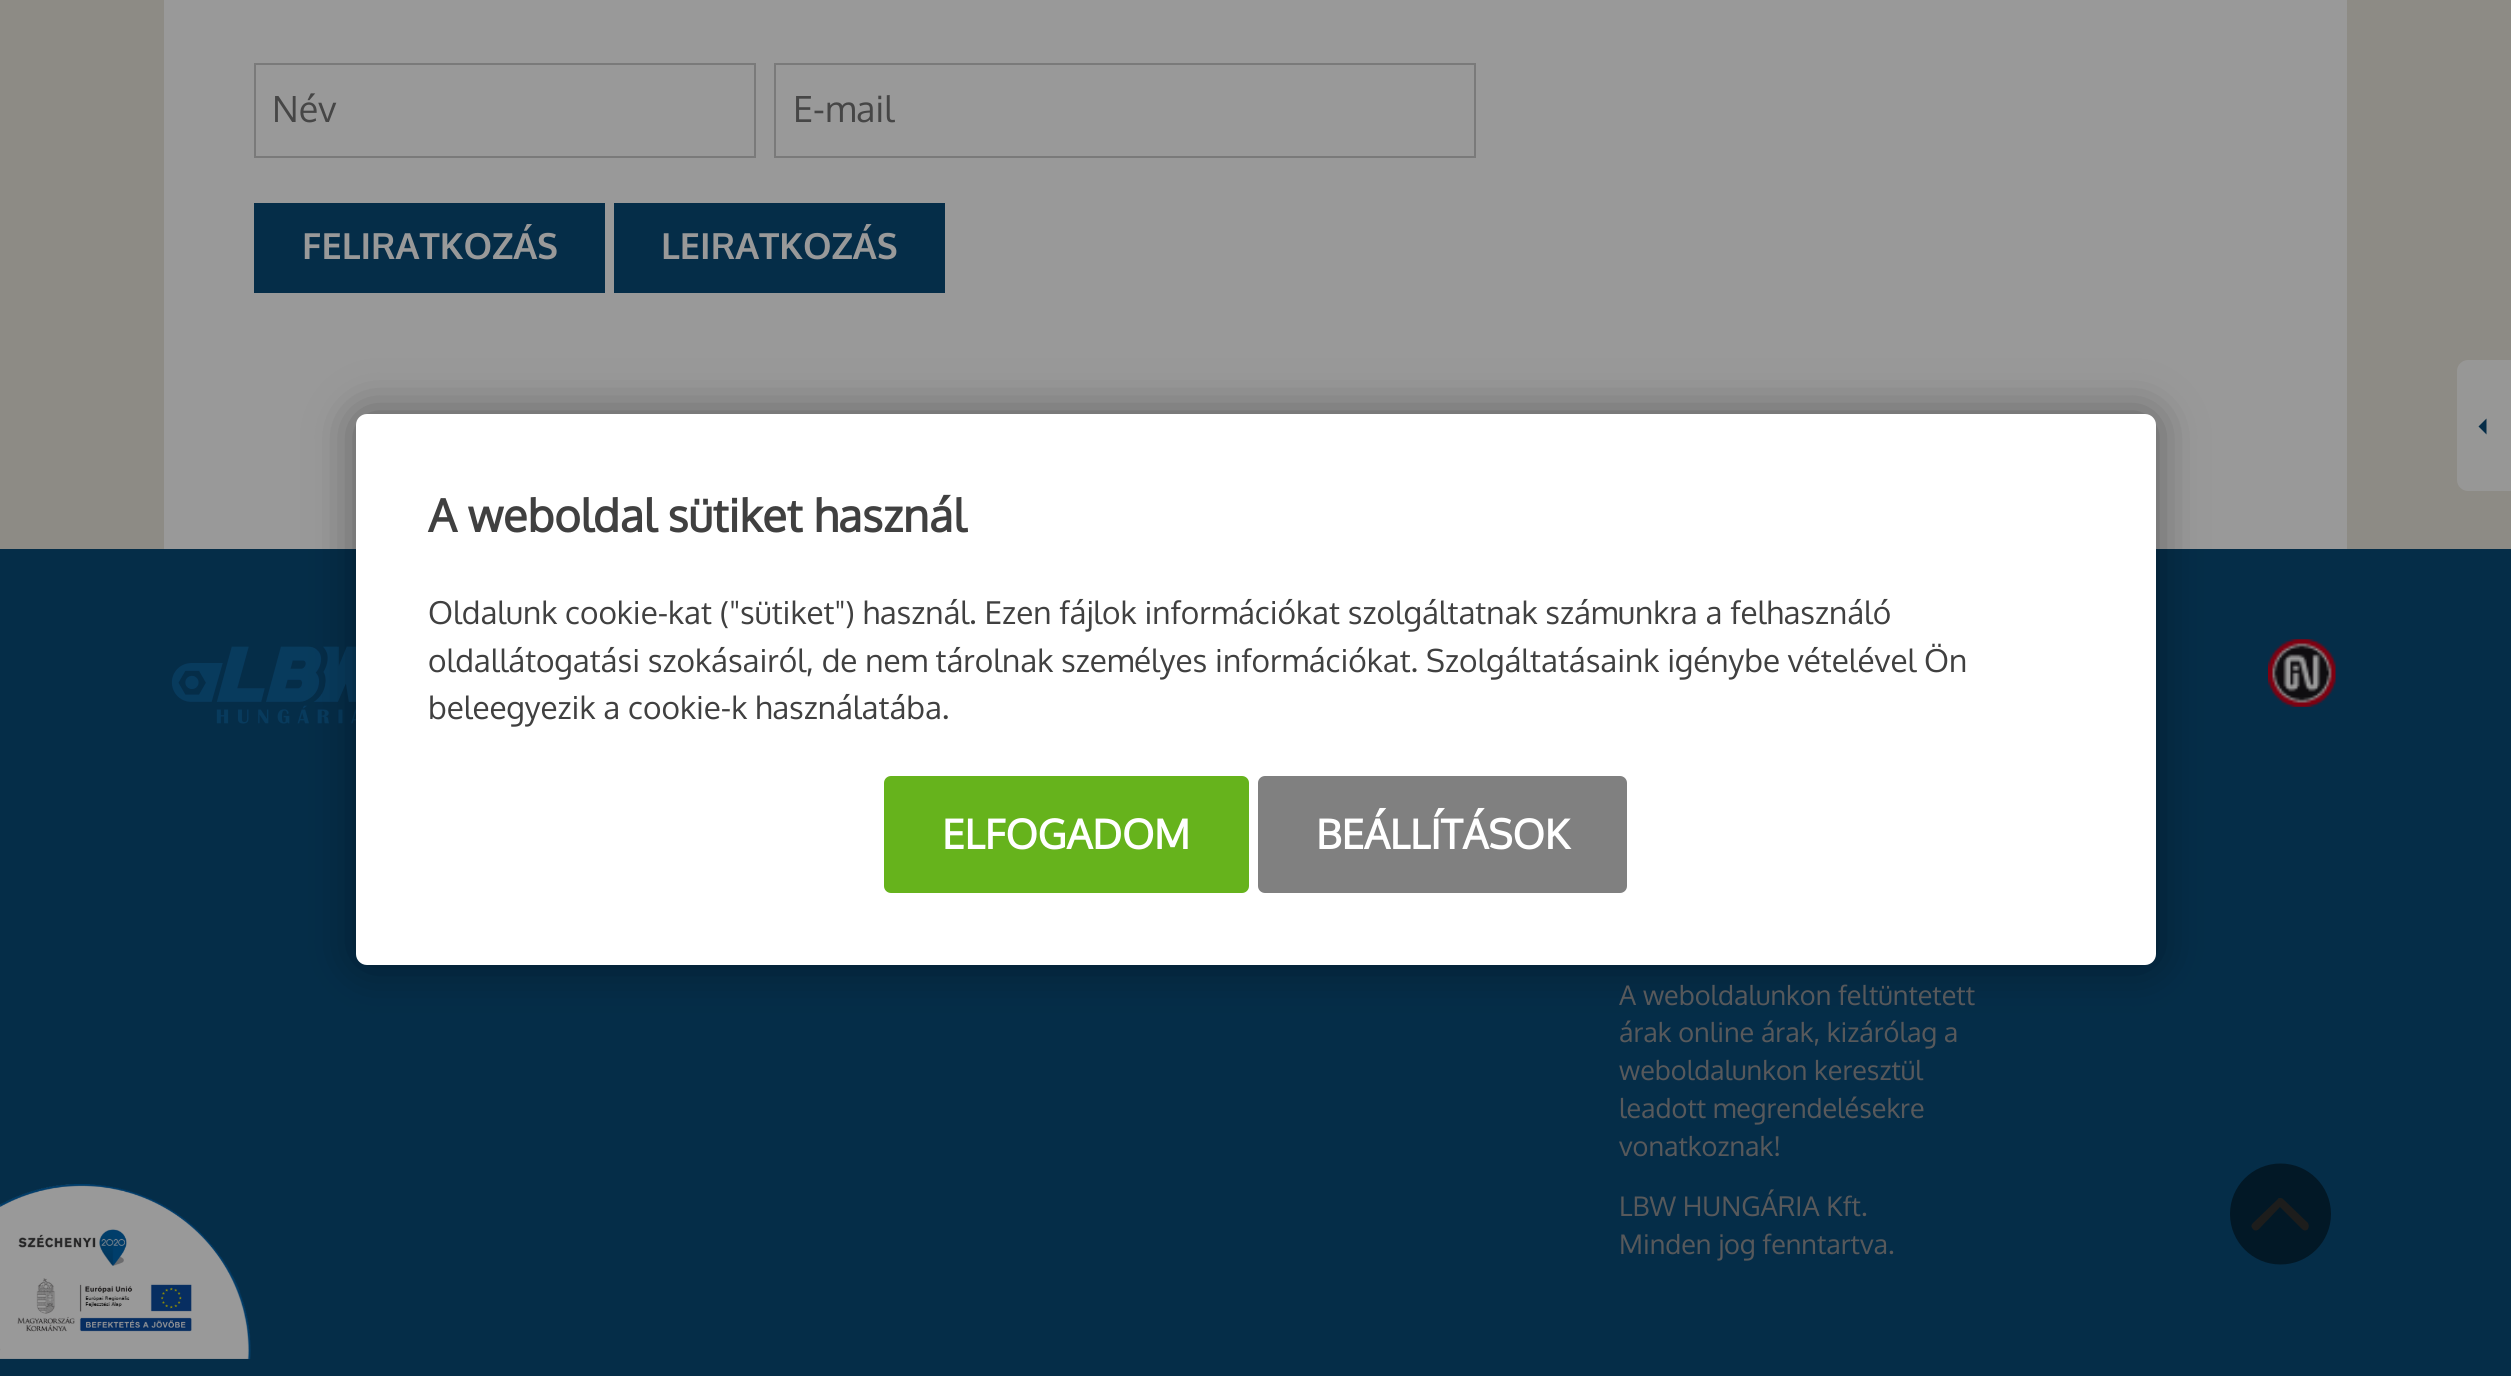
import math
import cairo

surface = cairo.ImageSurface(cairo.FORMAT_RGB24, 2511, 1376)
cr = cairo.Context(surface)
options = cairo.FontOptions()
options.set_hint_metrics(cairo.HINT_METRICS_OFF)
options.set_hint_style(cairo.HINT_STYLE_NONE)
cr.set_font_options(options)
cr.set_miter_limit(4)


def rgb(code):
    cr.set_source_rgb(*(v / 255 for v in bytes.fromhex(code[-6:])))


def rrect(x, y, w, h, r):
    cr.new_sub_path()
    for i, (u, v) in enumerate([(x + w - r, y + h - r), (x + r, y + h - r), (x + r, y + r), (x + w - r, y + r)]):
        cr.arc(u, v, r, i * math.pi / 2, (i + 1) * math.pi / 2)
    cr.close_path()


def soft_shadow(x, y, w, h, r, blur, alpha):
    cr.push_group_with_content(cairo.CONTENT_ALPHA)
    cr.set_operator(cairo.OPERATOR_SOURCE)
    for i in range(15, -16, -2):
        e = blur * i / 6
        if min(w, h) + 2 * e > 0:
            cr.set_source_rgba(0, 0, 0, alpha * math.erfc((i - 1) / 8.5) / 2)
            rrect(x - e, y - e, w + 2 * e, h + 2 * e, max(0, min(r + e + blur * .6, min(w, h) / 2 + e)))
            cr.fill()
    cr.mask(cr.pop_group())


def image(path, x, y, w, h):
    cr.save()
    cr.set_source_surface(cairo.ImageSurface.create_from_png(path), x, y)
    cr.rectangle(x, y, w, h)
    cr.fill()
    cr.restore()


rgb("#8d8b85")
cr.paint()
rgb("#999999")
cr.rectangle(164, 0, 2183, 549)
cr.fill()
cr.rectangle(255, 64, 500, 93)
rgb("#7a7a7a")
cr.stroke()
cr.rectangle(775, 64, 700, 93)
cr.stroke()
for x, y, w, h, color in [
    (254, 203, 351, 90, "#052d48"),
    (614, 203, 331, 90, "#052d48"),
    (0, 549, 2511, 827, "#052d48"),
]:
    rgb(color)
    cr.rectangle(x, y, w, h)
    cr.fill()
image("img/1.png", 0, 1184, 251, 175)
rgb("#979796")
cr.new_path()
cr.move_to(2468, 360)
cr.line_to(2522, 360)
cr.line_to(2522, 491)
cr.line_to(2468, 491)
cr.curve_to(2462, 491, 2457, 486, 2457, 480)
cr.line_to(2457, 371)
cr.curve_to(2457, 365, 2462, 360, 2468, 360)
cr.close_path()
cr.fill()
rgb("#052d48")
cr.new_path()
cr.move_to(2486.5, 418.5)
cr.line_to(2486.5, 434.5)
cr.line_to(2478.5, 426.5)
cr.close_path()
cr.fill()
image("img/2.png", 171, 646, 185, 78)
rgb("#000000")
soft_shadow(356, 414, 1800, 551, 11, 22.5, 0.4)
rgb("#ffffff")
rrect(356, 414, 1800, 551, 11)
cr.fill()
rgb("#66b31c")
rrect(885, 777, 363, 115, 6)
cr.fill_preserve()
cr.stroke()
rgb("#808080")
rrect(1259, 777, 367, 115, 6)
cr.fill_preserve()
cr.stroke()
image("img/3.png", 2268, 639, 68, 68)
rgb("#021826")
cr.arc(2280.5, 1214, 50.5, 0, 2 * math.pi)
cr.fill()
rgb("#1d1d1c")
cr.new_path()
cr.move_to(2280, 1198)
cr.curve_to(2279, 1198, 2278, 1198, 2278, 1199)
cr.line_to(2253, 1223)
cr.curve_to(2251, 1225, 2251, 1227, 2253, 1229)
cr.curve_to(2254, 1231, 2257, 1231, 2259, 1229)
cr.line_to(2280, 1207)
cr.line_to(2302, 1229)
cr.curve_to(2304, 1231, 2306, 1231, 2308, 1229)
cr.curve_to(2309, 1227, 2309, 1225, 2308, 1223)
cr.line_to(2283, 1199)
cr.curve_to(2282, 1198, 2281, 1198, 2280, 1198)
cr.close_path()
cr.fill()
cr.select_font_face("Oxygen")
cr.set_font_size(36)
rgb("#464646")
cr.move_to(272, 122)
cr.show_text("Név")
cr.move_to(793, 122)
cr.show_text("E-mail")
cr.select_font_face("Oxygen", cairo.FONT_SLANT_NORMAL, cairo.FONT_WEIGHT_BOLD)
rgb("#999999")
cr.move_to(302, 259)
cr.show_text("FELIRATKOZÁS")
cr.move_to(661, 259)
cr.show_text("LEIRATKOZÁS")
cr.select_font_face("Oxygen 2", cairo.FONT_SLANT_NORMAL, cairo.FONT_WEIGHT_BOLD)
cr.set_font_size(45)
rgb("#404040")
cr.move_to(428, 532)
cr.show_text("A weboldal sütiket használ")
cr.select_font_face("Oxygen")
cr.set_font_size(31.5)
for x, y, s in [
    (428, 624, "Oldalunk cookie-kat (\"sütiket\") használ. Ezen fájlok információkat szolgáltatnak számunkra a felhasználó"),
    (428, 672, "oldallátogatási szokásairól, de nem tárolnak személyes információkat. Szolgáltatásaink igénybe vételével Ön"),
    (428, 719, "beleegyezik a cookie-k használatába."),
]:
    cr.move_to(x, y)
    cr.show_text(s)
cr.select_font_face("Oxygen 2", cairo.FONT_SLANT_NORMAL, cairo.FONT_WEIGHT_BOLD)
cr.set_font_size(40.5)
rgb("#ffffff")
cr.move_to(942, 849)
cr.show_text("ELFOGADOM")
cr.move_to(1316, 849)
cr.show_text("BEÁLLÍTÁSOK")
cr.select_font_face("Oxygen")
cr.set_font_size(27)
rgb("#58595b")
for x, y, s in [
    (1619, 1005, "A weboldalunkon feltüntetett"),
    (1619, 1042, "árak online árak, kizárólag a"),
    (1619, 1080, "weboldalunkon keresztül"),
    (1619, 1118, "leadott megrendelésekre"),
    (1619, 1156, "vonatkoznak!"),
    (1619, 1216, "LBW HUNGÁRIA Kft."),
    (1619, 1254, "Minden jog fenntartva."),
]:
    cr.move_to(x, y)
    cr.show_text(s)
surface.write_to_png("page.png")
